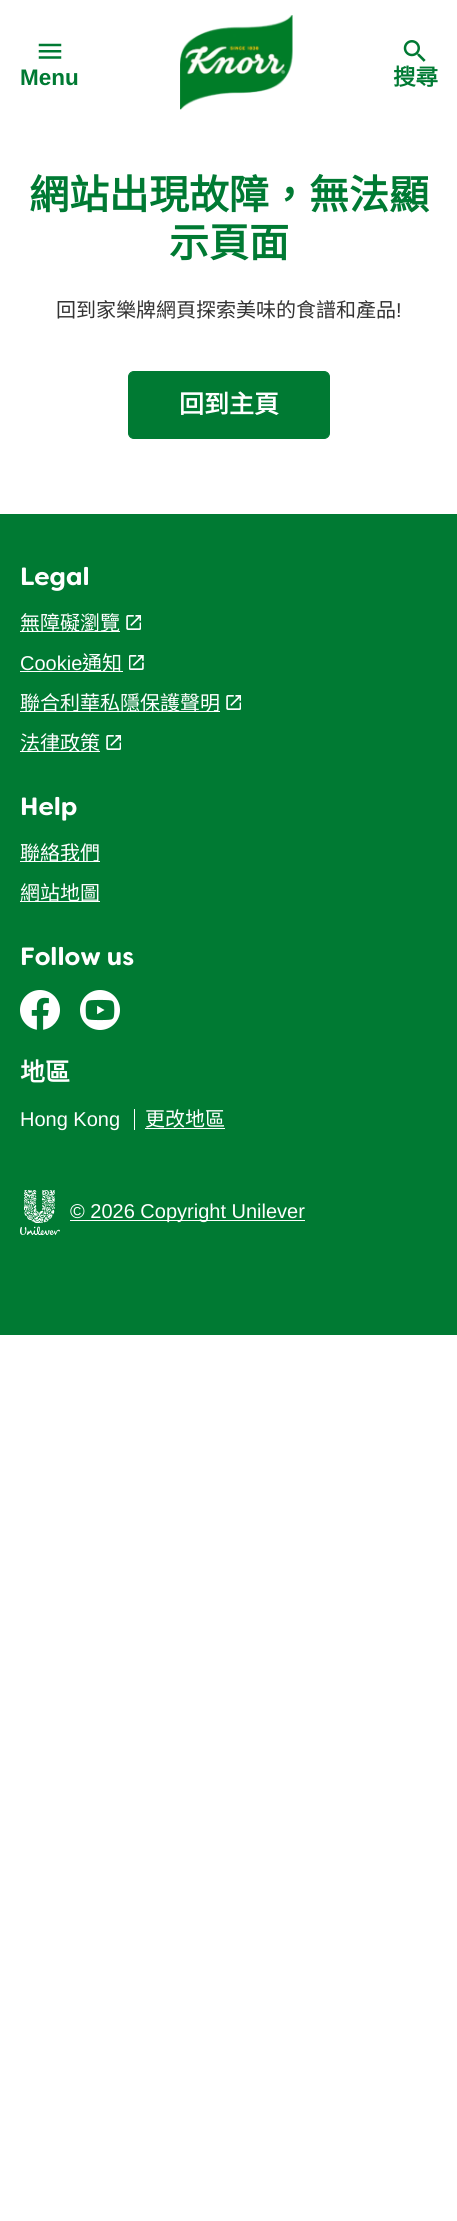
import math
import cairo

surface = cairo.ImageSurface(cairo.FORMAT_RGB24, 457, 2221)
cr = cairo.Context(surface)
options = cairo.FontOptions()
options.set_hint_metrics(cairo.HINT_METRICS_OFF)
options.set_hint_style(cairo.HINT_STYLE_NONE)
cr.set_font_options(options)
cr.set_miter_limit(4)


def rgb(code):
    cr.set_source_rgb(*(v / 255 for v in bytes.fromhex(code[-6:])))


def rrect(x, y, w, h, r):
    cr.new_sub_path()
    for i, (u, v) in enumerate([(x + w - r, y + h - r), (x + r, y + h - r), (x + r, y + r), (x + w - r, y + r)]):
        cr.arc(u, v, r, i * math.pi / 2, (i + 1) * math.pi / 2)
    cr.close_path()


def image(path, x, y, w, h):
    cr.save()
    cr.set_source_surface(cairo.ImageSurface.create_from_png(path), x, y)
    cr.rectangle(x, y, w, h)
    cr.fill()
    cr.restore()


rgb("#ffffff")
cr.paint()
image("img/1.png", 38, 43, 24, 16)
image("img/2.png", 180, 15, 113, 95)
image("img/3.png", 403, 40, 23, 22)
rgb("#007a33")
rrect(128.5, 371.5, 201, 67, 5.5)
cr.fill_preserve()
cr.set_line_width(1)
cr.stroke()
cr.rectangle(0, 514, 457, 821)
cr.fill()
rgb("#ffffff")
cr.rectangle(20, 631, 100, 1)
cr.fill()
image("img/4.png", 126, 615, 15, 15)
cr.rectangle(20, 671, 103, 1)
cr.fill()
image("img/5.png", 129, 655, 15, 15)
cr.rectangle(20, 711, 200, 1)
cr.fill()
image("img/4.png", 226, 695, 15, 15)
cr.rectangle(20, 751, 80, 1)
cr.fill()
image("img/4.png", 106, 735, 15, 15)
cr.rectangle(20, 861, 80, 1)
cr.fill()
cr.rectangle(20, 901, 80, 1)
cr.fill()
image("img/6.png", 20, 990, 40, 40)
image("img/7.png", 80, 990, 40, 40)
cr.rectangle(134, 1109, 1, 21)
cr.fill()
cr.rectangle(145, 1128, 80, 1)
cr.fill()
image("img/8.png", 20, 1190, 40, 45)
cr.rectangle(70, 1220, 235, 1)
cr.fill()
cr.select_font_face("Liberation Sans", cairo.FONT_SLANT_NORMAL, cairo.FONT_WEIGHT_BOLD)
cr.set_font_size(22.5)
rgb("#007a33")
cr.move_to(20, 85)
cr.show_text("Menu")
cr.select_font_face("Noto Sans CJK HK", cairo.FONT_SLANT_NORMAL, cairo.FONT_WEIGHT_BOLD)
cr.move_to(393, 85)
cr.show_text("搜尋")
cr.set_font_size(40)
cr.move_to(29, 209)
cr.show_text("網站出現故障，無法顯")
cr.move_to(169, 257)
cr.show_text("示頁面")
cr.select_font_face("Noto Sans CJK HK")
cr.set_font_size(20)
rgb("#333333")
cr.move_to(56, 317)
cr.show_text("回到家樂牌網頁探索美味的食譜和產品")
cr.select_font_face("Liberation Sans")
cr.move_to(396, 317)
cr.show_text("!")
cr.select_font_face("Noto Sans CJK HK", cairo.FONT_SLANT_NORMAL, cairo.FONT_WEIGHT_BOLD)
cr.set_font_size(25)
rgb("#ffffff")
cr.move_to(179, 413)
cr.show_text("回到主頁")
cr.select_font_face("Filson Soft", cairo.FONT_SLANT_NORMAL, cairo.FONT_WEIGHT_BOLD)
cr.move_to(20, 585)
cr.show_text("Legal")
cr.select_font_face("Noto Sans CJK HK")
cr.set_font_size(20)
cr.move_to(20, 630)
cr.show_text("無障礙瀏覽")
cr.select_font_face("Liberation Sans")
cr.move_to(20, 670)
cr.show_text("Cookie")
cr.select_font_face("Noto Sans CJK HK")
for x, y, s in [
    (82, 670, "通知"),
    (20, 710, "聯合利華私隱保護聲明"),
    (20, 750, "法律政策"),
]:
    cr.move_to(x, y)
    cr.show_text(s)
cr.select_font_face("Filson Soft", cairo.FONT_SLANT_NORMAL, cairo.FONT_WEIGHT_BOLD)
cr.set_font_size(25)
cr.move_to(20, 815)
cr.show_text("Help")
cr.select_font_face("Noto Sans CJK HK")
cr.set_font_size(20)
cr.move_to(20, 860)
cr.show_text("聯絡我們")
cr.move_to(20, 900)
cr.show_text("網站地圖")
cr.select_font_face("Filson Soft", cairo.FONT_SLANT_NORMAL, cairo.FONT_WEIGHT_BOLD)
cr.set_font_size(25)
cr.move_to(20, 965)
cr.show_text("Follow us")
cr.select_font_face("Noto Sans CJK HK", cairo.FONT_SLANT_NORMAL, cairo.FONT_WEIGHT_BOLD)
cr.move_to(20, 1081)
cr.show_text("地區")
cr.select_font_face("Liberation Sans")
cr.set_font_size(20)
cr.move_to(20, 1126)
cr.show_text("Hong Kong")
cr.select_font_face("Noto Sans CJK HK")
cr.move_to(145, 1126)
cr.show_text("更改地區")
cr.select_font_face("Liberation Sans")
cr.move_to(70, 1218)
cr.show_text("© 2026 Copyright Unilever")
surface.write_to_png("page.png")
